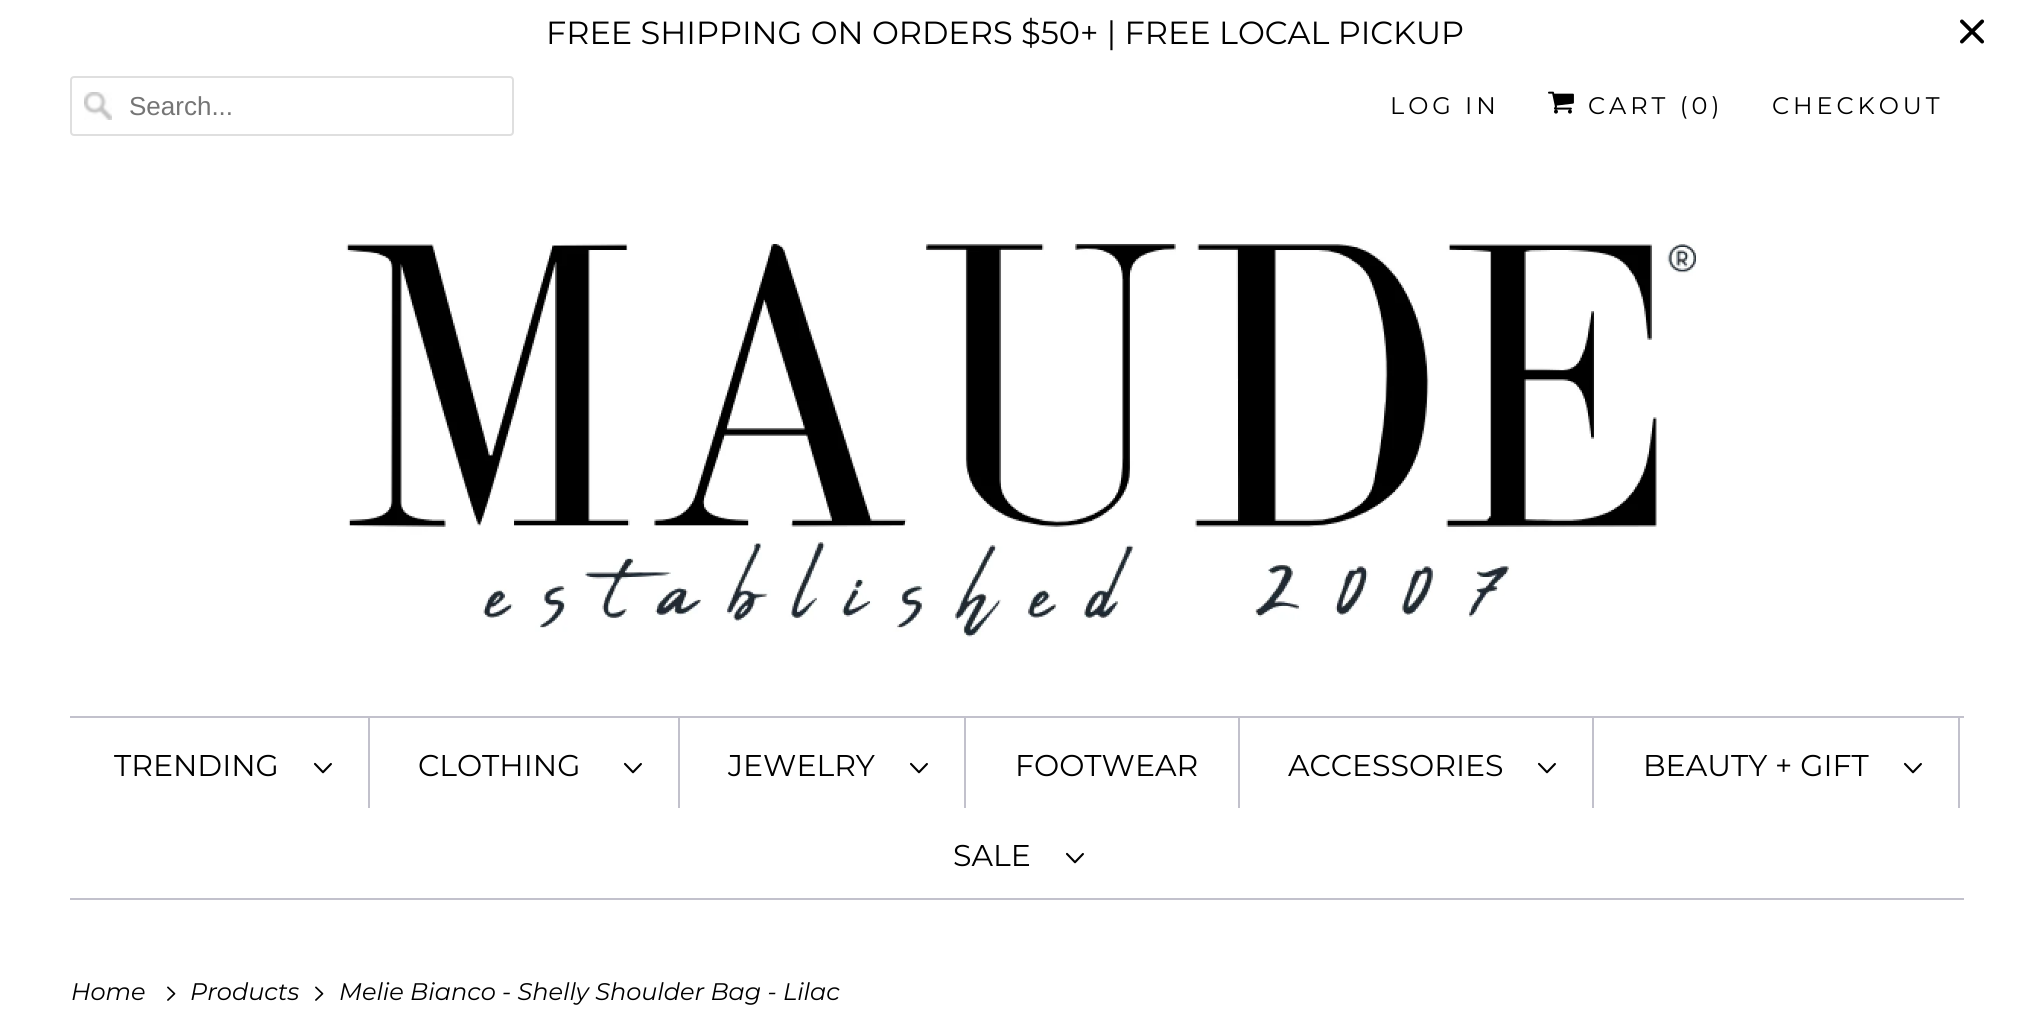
import math
import cairo

surface = cairo.ImageSurface(cairo.FORMAT_RGB24, 2034, 1017)
cr = cairo.Context(surface)
options = cairo.FontOptions()
options.set_hint_metrics(cairo.HINT_METRICS_OFF)
options.set_hint_style(cairo.HINT_STYLE_NONE)
cr.set_font_options(options)
cr.set_miter_limit(4)


def rgb(code):
    cr.set_source_rgb(*(v / 255 for v in bytes.fromhex(code[-6:])))


def tracked(x, y, s, letter, word):
    cr.move_to(x, y)
    for ch in s:
        cr.show_text(ch)
        cr.rel_move_to(letter + word * (ch == ' '), 0)


def rrect(x, y, w, h, r):
    cr.new_sub_path()
    for i, (u, v) in enumerate([(x + w - r, y + h - r), (x + r, y + h - r), (x + r, y + r), (x + w - r, y + r)]):
        cr.arc(u, v, r, i * math.pi / 2, (i + 1) * math.pi / 2)
    cr.close_path()


def image(path, x, y, w, h):
    cr.save()
    cr.set_source_surface(cairo.ImageSurface.create_from_png(path), x, y)
    cr.rectangle(x, y, w, h)
    cr.fill()
    cr.restore()


rgb("#ffffff")
cr.paint()
image("img/1.png", 1960, 19, 25, 25)
image("img/2.png", 84, 92, 28, 28)
rrect(71, 77, 442, 58, 3)
rgb("#dfdfdf")
cr.stroke()
image("img/3.png", 1548, 91, 26, 23)
image("img/4.png", 346, 243, 1350, 395)
for x, y, w, h, color in [
    (70, 716, 1894, 2, "#c2c1cc"),
    (70, 898, 1894, 2, "#c2c1cc"),
    (368, 718, 2, 90, "#c2c1cc"),
]:
    rgb(color)
    cr.rectangle(x, y, w, h)
    cr.fill()
image("img/5.png", 314, 762, 18, 12)
cr.rectangle(678, 718, 2, 90)
cr.fill()
image("img/5.png", 624, 762, 18, 12)
cr.rectangle(964, 718, 2, 90)
cr.fill()
image("img/5.png", 910, 762, 18, 12)
cr.rectangle(1238, 718, 2, 90)
cr.fill()
cr.rectangle(1592, 718, 2, 90)
cr.fill()
image("img/5.png", 1538, 762, 18, 12)
cr.rectangle(1958, 718, 2, 90)
cr.fill()
image("img/5.png", 1904, 762, 18, 12)
image("img/5.png", 1066, 852, 18, 12)
image("img/6.png", 167, 986, 9, 15)
image("img/6.png", 315, 986, 9, 15)
cr.select_font_face("Montserrat")
cr.set_font_size(32)
rgb("#000000")
cr.move_to(546, 44)
cr.show_text("FREE SHIPPING ON ORDERS $50+ | FREE LOCAL PICKUP")
cr.select_font_face("Liberation Sans")
cr.set_font_size(26)
rgb("#757575")
cr.move_to(129, 115)
cr.show_text("Search...")
cr.select_font_face("Montserrat")
cr.set_font_size(24)
rgb("#000000")
for x, y, s in [
    (1390, 114, "LOG IN"),
    (1588, 114, "CART (0)"),
    (1772, 114, "CHECKOUT"),
]:
    tracked(x, y, s, 4, 0)
cr.set_font_size(30)
for x, y, s in [
    (114, 776, "TRENDING"),
    (418, 776, "CLOTHING"),
    (728, 776, "JEWELRY"),
    (1015, 776, "FOOTWEAR"),
    (1288, 776, "ACCESSORIES"),
    (1643, 776, "BEAUTY + GIFT"),
    (953, 866, "SALE"),
]:
    cr.move_to(x, y)
    cr.show_text(s)
cr.select_font_face("Montserrat", cairo.FONT_SLANT_ITALIC)
cr.set_font_size(24)
for x, y, s in [
    (71, 1000, "Home"),
    (190, 1000, "Products"),
    (339, 1000, "Melie Bianco - Shelly Shoulder Bag - Lilac"),
]:
    cr.move_to(x, y)
    cr.show_text(s)
surface.write_to_png("page.png")
